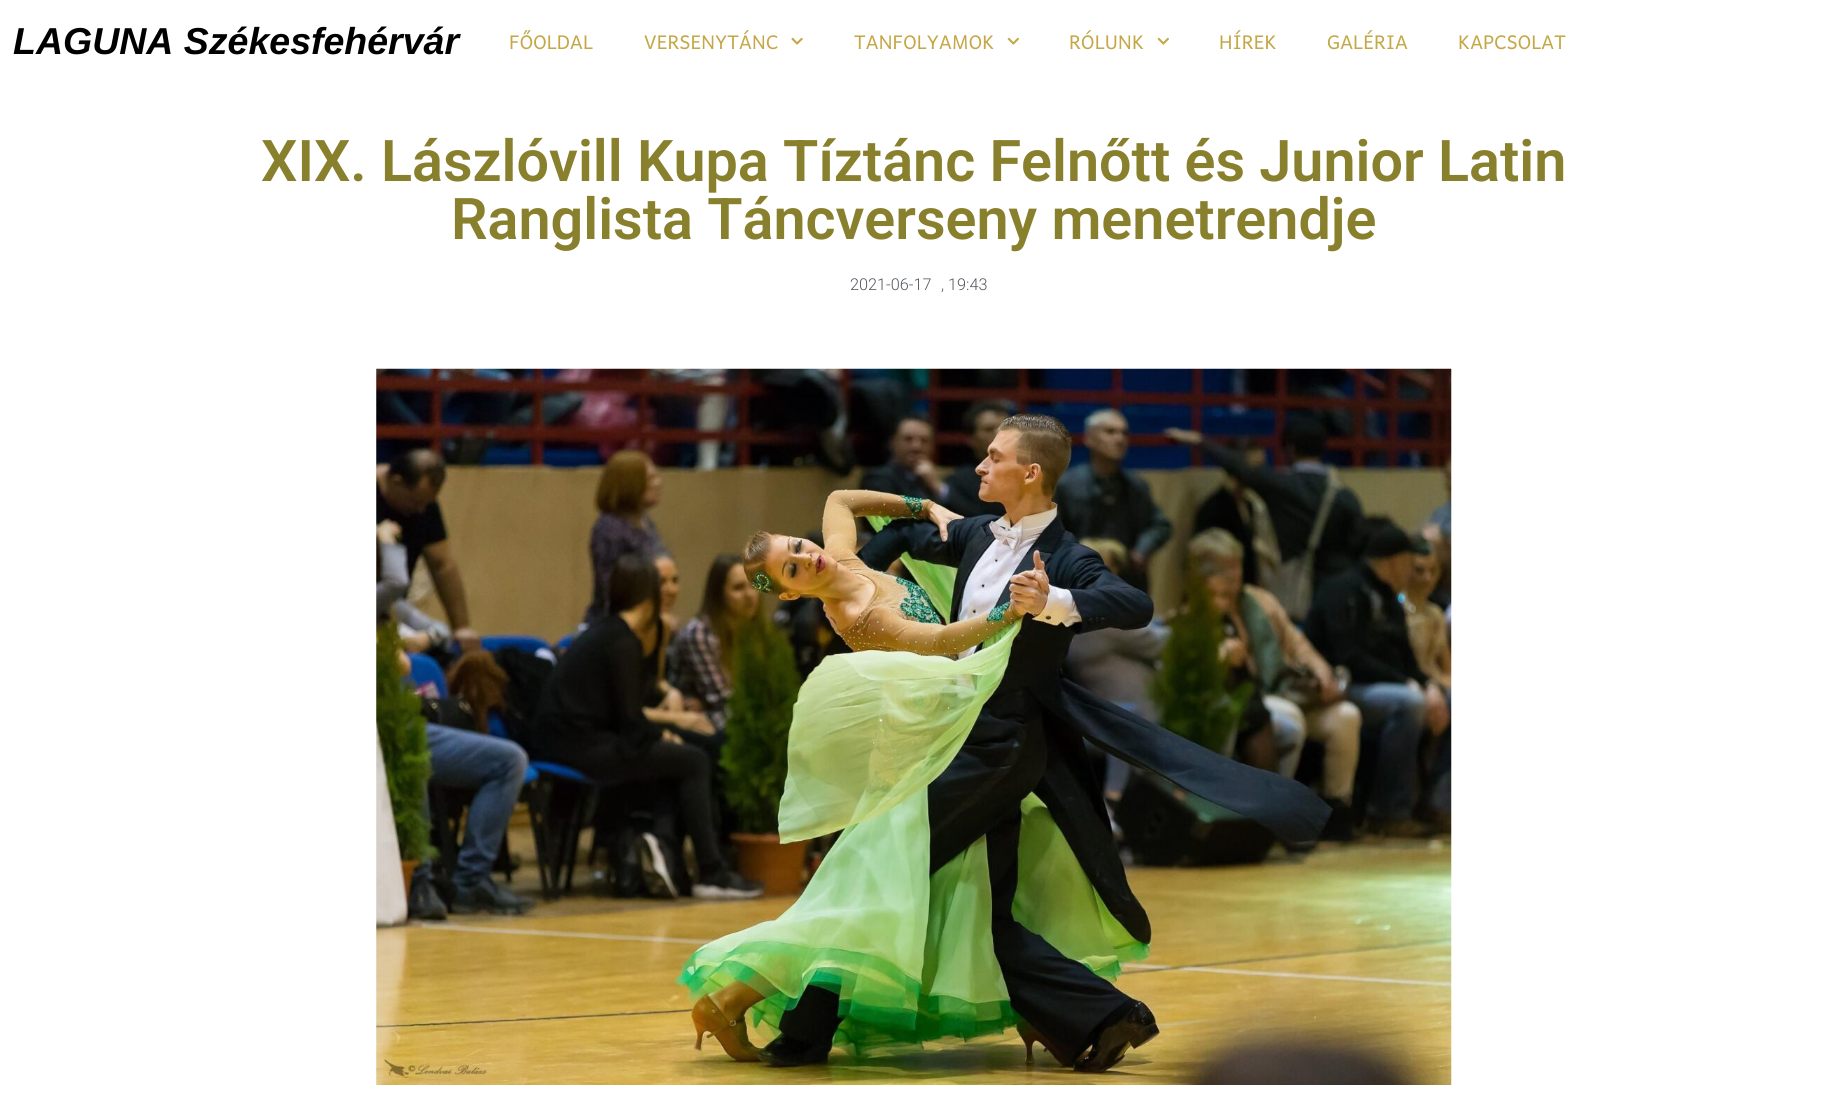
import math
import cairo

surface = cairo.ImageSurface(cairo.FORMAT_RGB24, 1827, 1103)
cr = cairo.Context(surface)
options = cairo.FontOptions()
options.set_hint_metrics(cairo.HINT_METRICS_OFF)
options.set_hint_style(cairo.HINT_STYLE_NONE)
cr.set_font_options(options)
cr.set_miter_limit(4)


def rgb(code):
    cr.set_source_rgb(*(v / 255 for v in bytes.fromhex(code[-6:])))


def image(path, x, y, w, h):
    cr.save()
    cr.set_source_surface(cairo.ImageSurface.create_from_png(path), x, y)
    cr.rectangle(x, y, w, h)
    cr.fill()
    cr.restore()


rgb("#ffffff")
cr.paint()
image("img/1.png", 791, 37, 12, 8)
image("img/2.png", 1007, 37, 12, 8)
image("img/2.png", 1157, 37, 12, 8)
image("img/3.png", 376, 368, 1076, 717)
cr.select_font_face("Liberation Sans", cairo.FONT_SLANT_ITALIC, cairo.FONT_WEIGHT_BOLD)
cr.set_font_size(37.5)
rgb("#000000")
cr.move_to(13, 54)
cr.show_text("LAGUNA Székesfehérvár")
cr.select_font_face("Andika")
cr.set_font_size(19)
rgb("#c4a746")
for x, y, s in [
    (509, 49, "FŐOLDAL"),
    (644, 49, "VERSENYTÁNC"),
    (854, 49, "TANFOLYAMOK"),
    (1069, 49, "RÓLUNK"),
    (1219, 49, "HÍREK"),
    (1327, 49, "GALÉRIA"),
    (1458, 49, "KAPCSOLAT"),
]:
    cr.move_to(x, y)
    cr.show_text(s)
cr.select_font_face("Roboto SemiBold")
cr.set_font_size(57.5)
rgb("#89802d")
cr.move_to(261, 181)
cr.show_text("XIX. Lászlóvill Kupa Tíztánc Felnőtt és Junior Latin")
cr.move_to(451, 239)
cr.show_text("Ranglista Táncverseny menetrendje")
cr.select_font_face("Roboto Light")
cr.set_font_size(16.25)
rgb("#54595f")
cr.move_to(850, 290)
cr.show_text("2021-06-17")
cr.move_to(941, 290)
cr.show_text(", 19:43")
surface.write_to_png("page.png")
